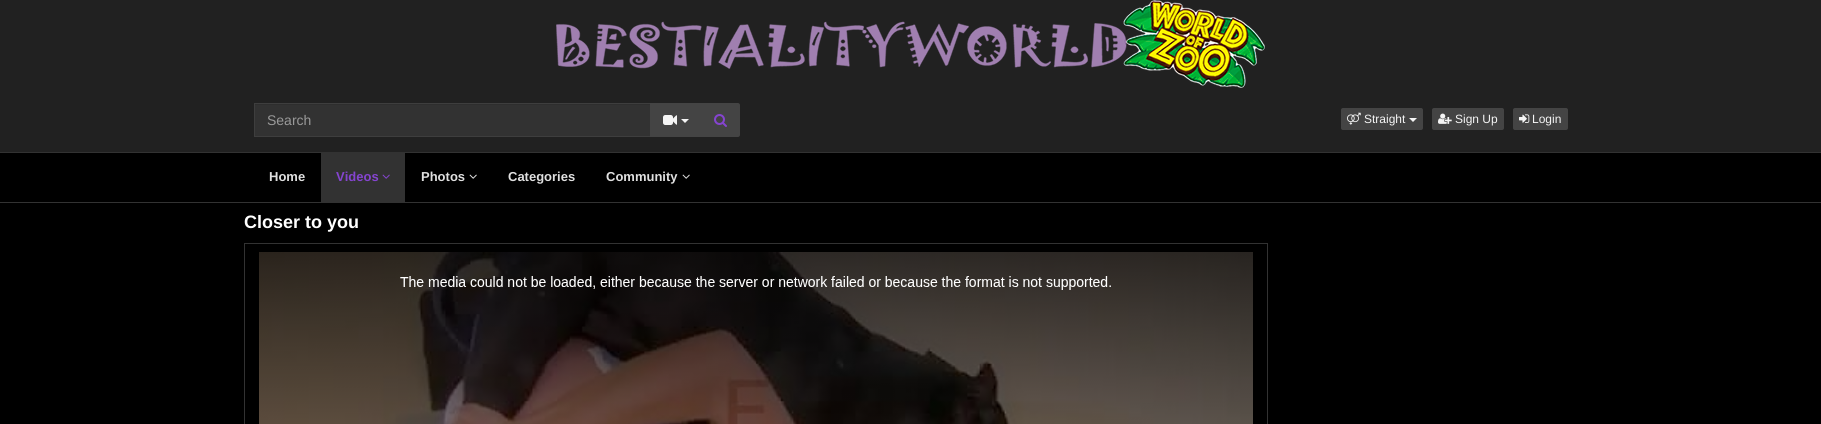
import math
import cairo

surface = cairo.ImageSurface(cairo.FORMAT_RGB24, 1821, 424)
cr = cairo.Context(surface)
options = cairo.FontOptions()
options.set_hint_metrics(cairo.HINT_METRICS_OFF)
options.set_hint_style(cairo.HINT_STYLE_NONE)
cr.set_font_options(options)
cr.set_miter_limit(4)


def rgb(code):
    cr.set_source_rgb(*(v / 255 for v in bytes.fromhex(code[-6:])))


def rrect(x, y, w, h, r):
    cr.new_sub_path()
    for i, (u, v) in enumerate([(x + w - r, y + h - r), (x + r, y + h - r), (x + r, y + r), (x + w - r, y + r)]):
        cr.arc(u, v, r, i * math.pi / 2, (i + 1) * math.pi / 2)
    cr.close_path()


def image(path, x, y, w, h):
    cr.save()
    cr.set_source_surface(cairo.ImageSurface.create_from_png(path), x, y)
    cr.rectangle(x, y, w, h)
    cr.fill()
    cr.restore()


rgb("#000000")
cr.paint()
rgb("#212121")
cr.rectangle(0, 0, 1821, 152)
cr.fill()
rgb("#323232")
cr.rectangle(0, 152, 1821, 1)
cr.fill()
image("img/1.png", 556, 0, 709, 88)
cr.rectangle(255, 105, 395, 31)
cr.fill()
rgb("#2e2e2e")
cr.rectangle(255, 104, 395, 1)
cr.fill()
cr.rectangle(254.5, 103.5, 396, 33)
rgb("#3e3e3e")
cr.set_line_width(1)
cr.stroke()
rgb("#444444")
cr.rectangle(650, 103, 51, 34)
cr.fill()
image("img/2.png", 663, 115, 14, 10)
rgb("#f5f5f5")
cr.new_path()
cr.move_to(681, 119)
cr.line_to(689, 119)
cr.line_to(685, 123)
cr.close_path()
cr.fill()
rgb("#444444")
cr.new_path()
cr.move_to(701, 103)
cr.line_to(738, 103)
cr.curve_to(739, 103, 740, 104, 740, 105)
cr.line_to(740, 135)
cr.curve_to(740, 136, 739, 137, 738, 137)
cr.line_to(701, 137)
cr.close_path()
cr.fill()
image("img/3.png", 714, 114, 13, 13)
rrect(1341, 108, 82, 22, 2)
cr.fill()
image("img/4.png", 1347, 112, 14, 13)
rgb("#f5f5f5")
cr.new_path()
cr.move_to(1409, 118)
cr.line_to(1417, 118)
cr.line_to(1413, 122)
cr.close_path()
cr.fill()
rgb("#444444")
rrect(1432, 108, 72, 22, 2)
cr.fill()
image("img/5.png", 1438, 113, 14, 11)
rrect(1513, 108, 55, 22, 2)
cr.fill()
image("img/6.png", 1519, 114, 11, 9)
rgb("#323232")
cr.rectangle(0, 202, 1821, 1)
cr.fill()
cr.rectangle(321, 153, 84, 49)
cr.fill()
image("img/7.png", 382, 174, 8, 5)
image("img/8.png", 469, 174, 8, 5)
image("img/8.png", 682, 174, 8, 5)
cr.rectangle(244.5, 243.5, 1023, 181)
cr.stroke()
image("img/9.png", 259, 252, 994, 172)
cr.select_font_face("Liberation Sans")
cr.set_font_size(14)
rgb("#999999")
cr.move_to(267, 125)
cr.show_text("Search")
cr.set_font_size(12)
rgb("#f5f5f5")
for x, y, s in [
    (1364, 123, "Straight"),
    (1455, 123, "Sign Up"),
    (1532, 123, "Login"),
]:
    cr.move_to(x, y)
    cr.show_text(s)
cr.select_font_face("Liberation Sans", cairo.FONT_SLANT_NORMAL, cairo.FONT_WEIGHT_BOLD)
cr.set_font_size(13)
rgb("#e0e0e0")
cr.move_to(269, 181)
cr.show_text("Home")
rgb("#8544d0")
cr.move_to(336, 181)
cr.show_text("Videos")
rgb("#e0e0e0")
for x, y, s in [
    (421, 181, "Photos"),
    (508, 181, "Categories"),
    (606, 181, "Community"),
]:
    cr.move_to(x, y)
    cr.show_text(s)
cr.set_font_size(18)
rgb("#ffffff")
cr.move_to(244, 228)
cr.show_text("Closer to you")
surface.write_to_png("page.png")
